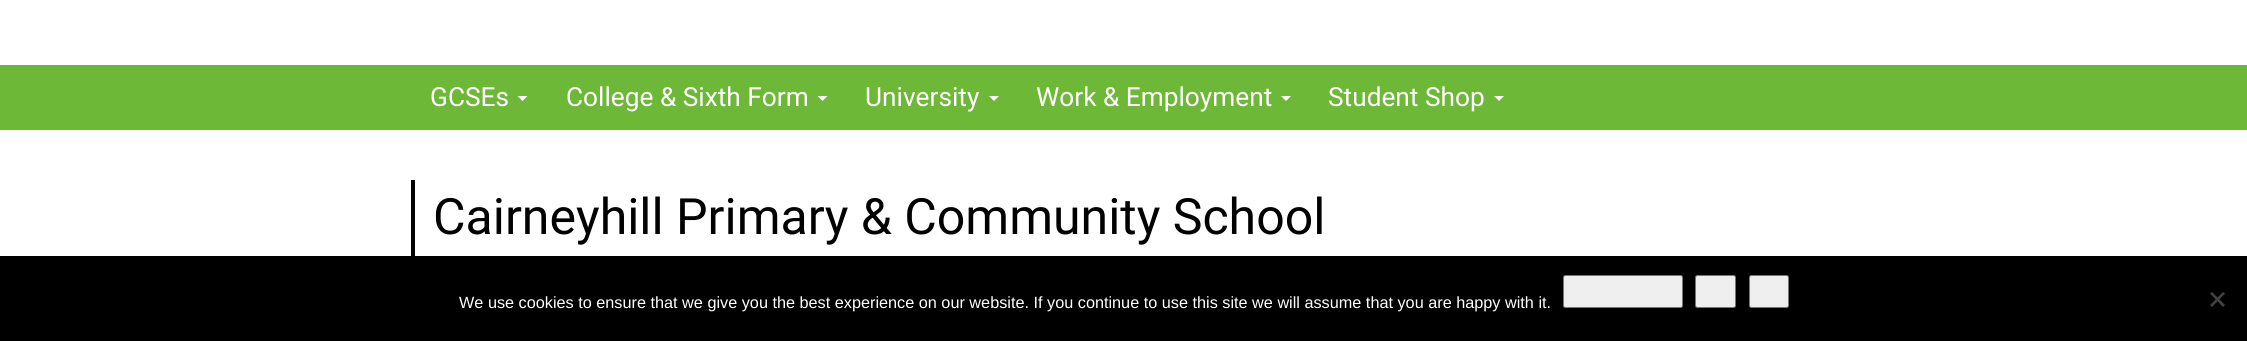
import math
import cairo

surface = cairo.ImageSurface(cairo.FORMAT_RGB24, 2247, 341)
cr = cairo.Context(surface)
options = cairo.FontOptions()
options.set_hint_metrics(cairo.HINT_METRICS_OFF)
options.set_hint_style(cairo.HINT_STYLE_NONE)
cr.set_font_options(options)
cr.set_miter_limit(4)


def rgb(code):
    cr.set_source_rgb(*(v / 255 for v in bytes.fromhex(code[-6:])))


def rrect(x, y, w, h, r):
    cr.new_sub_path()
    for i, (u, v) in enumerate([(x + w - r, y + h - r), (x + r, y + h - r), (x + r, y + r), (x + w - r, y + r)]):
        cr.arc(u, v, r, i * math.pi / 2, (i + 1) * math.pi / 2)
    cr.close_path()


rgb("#ffffff")
cr.paint()
rgb("#6db837")
cr.rectangle(0, 65, 2247, 65)
cr.fill()
rgb("#ffffff")
cr.new_path()
cr.move_to(517.5, 96)
cr.line_to(527.5, 96)
cr.line_to(522.5, 101)
cr.close_path()
cr.fill()
cr.new_path()
cr.move_to(817.5, 96)
cr.line_to(827.5, 96)
cr.line_to(822.5, 101)
cr.close_path()
cr.fill()
cr.new_path()
cr.move_to(989, 96)
cr.line_to(999, 96)
cr.line_to(994, 101)
cr.close_path()
cr.fill()
cr.new_path()
cr.move_to(1281, 96)
cr.line_to(1291, 96)
cr.line_to(1286, 101)
cr.close_path()
cr.fill()
cr.new_path()
cr.move_to(1494, 96)
cr.line_to(1504, 96)
cr.line_to(1499, 101)
cr.close_path()
cr.fill()
rgb("#000000")
cr.rectangle(411, 180, 4, 78)
cr.fill()
cr.rectangle(0, 256, 2247, 85)
cr.fill()
rgb("#efefef")
rrect(1563.5, 275.5, 119, 32, 2)
cr.fill_preserve()
rgb("#767676")
cr.set_line_width(1)
cr.stroke()
rgb("#efefef")
rrect(1695.5, 275.5, 40, 32, 2)
cr.fill_preserve()
rgb("#767676")
cr.stroke()
rgb("#efefef")
rrect(1749.5, 275.5, 39, 32, 2)
cr.fill_preserve()
rgb("#767676")
cr.stroke()
rgb("#404040")
cr.new_path()
cr.move_to(2223, 292)
cr.line_to(2225, 293.5)
cr.line_to(2212, 307)
cr.line_to(2210, 305)
cr.close_path()
cr.fill()
cr.new_path()
cr.move_to(2210, 293.5)
cr.line_to(2212, 292)
cr.line_to(2225, 305)
cr.line_to(2223, 307)
cr.close_path()
cr.fill()
cr.select_font_face("Roboto")
cr.set_font_size(26.25)
rgb("#ffffff")
for x, y, s in [
    (430, 106, "GCSEs"),
    (566, 106, "College & Sixth Form"),
    (865, 106, "University"),
    (1036, 106, "Work & Employment"),
    (1328, 106, "Student Shop"),
]:
    cr.move_to(x, y)
    cr.show_text(s)
cr.set_font_size(50)
rgb("#000000")
cr.move_to(433, 234)
cr.show_text("Cairneyhill Primary & Community School")
cr.select_font_face("Liberation Sans")
cr.set_font_size(16.25)
rgb("#ffffff")
cr.move_to(459, 308)
cr.show_text("We use cookies to ensure that we give you the best experience on our website. If you continue to use this site we will assume that you are happy with it.")
surface.write_to_png("page.png")
